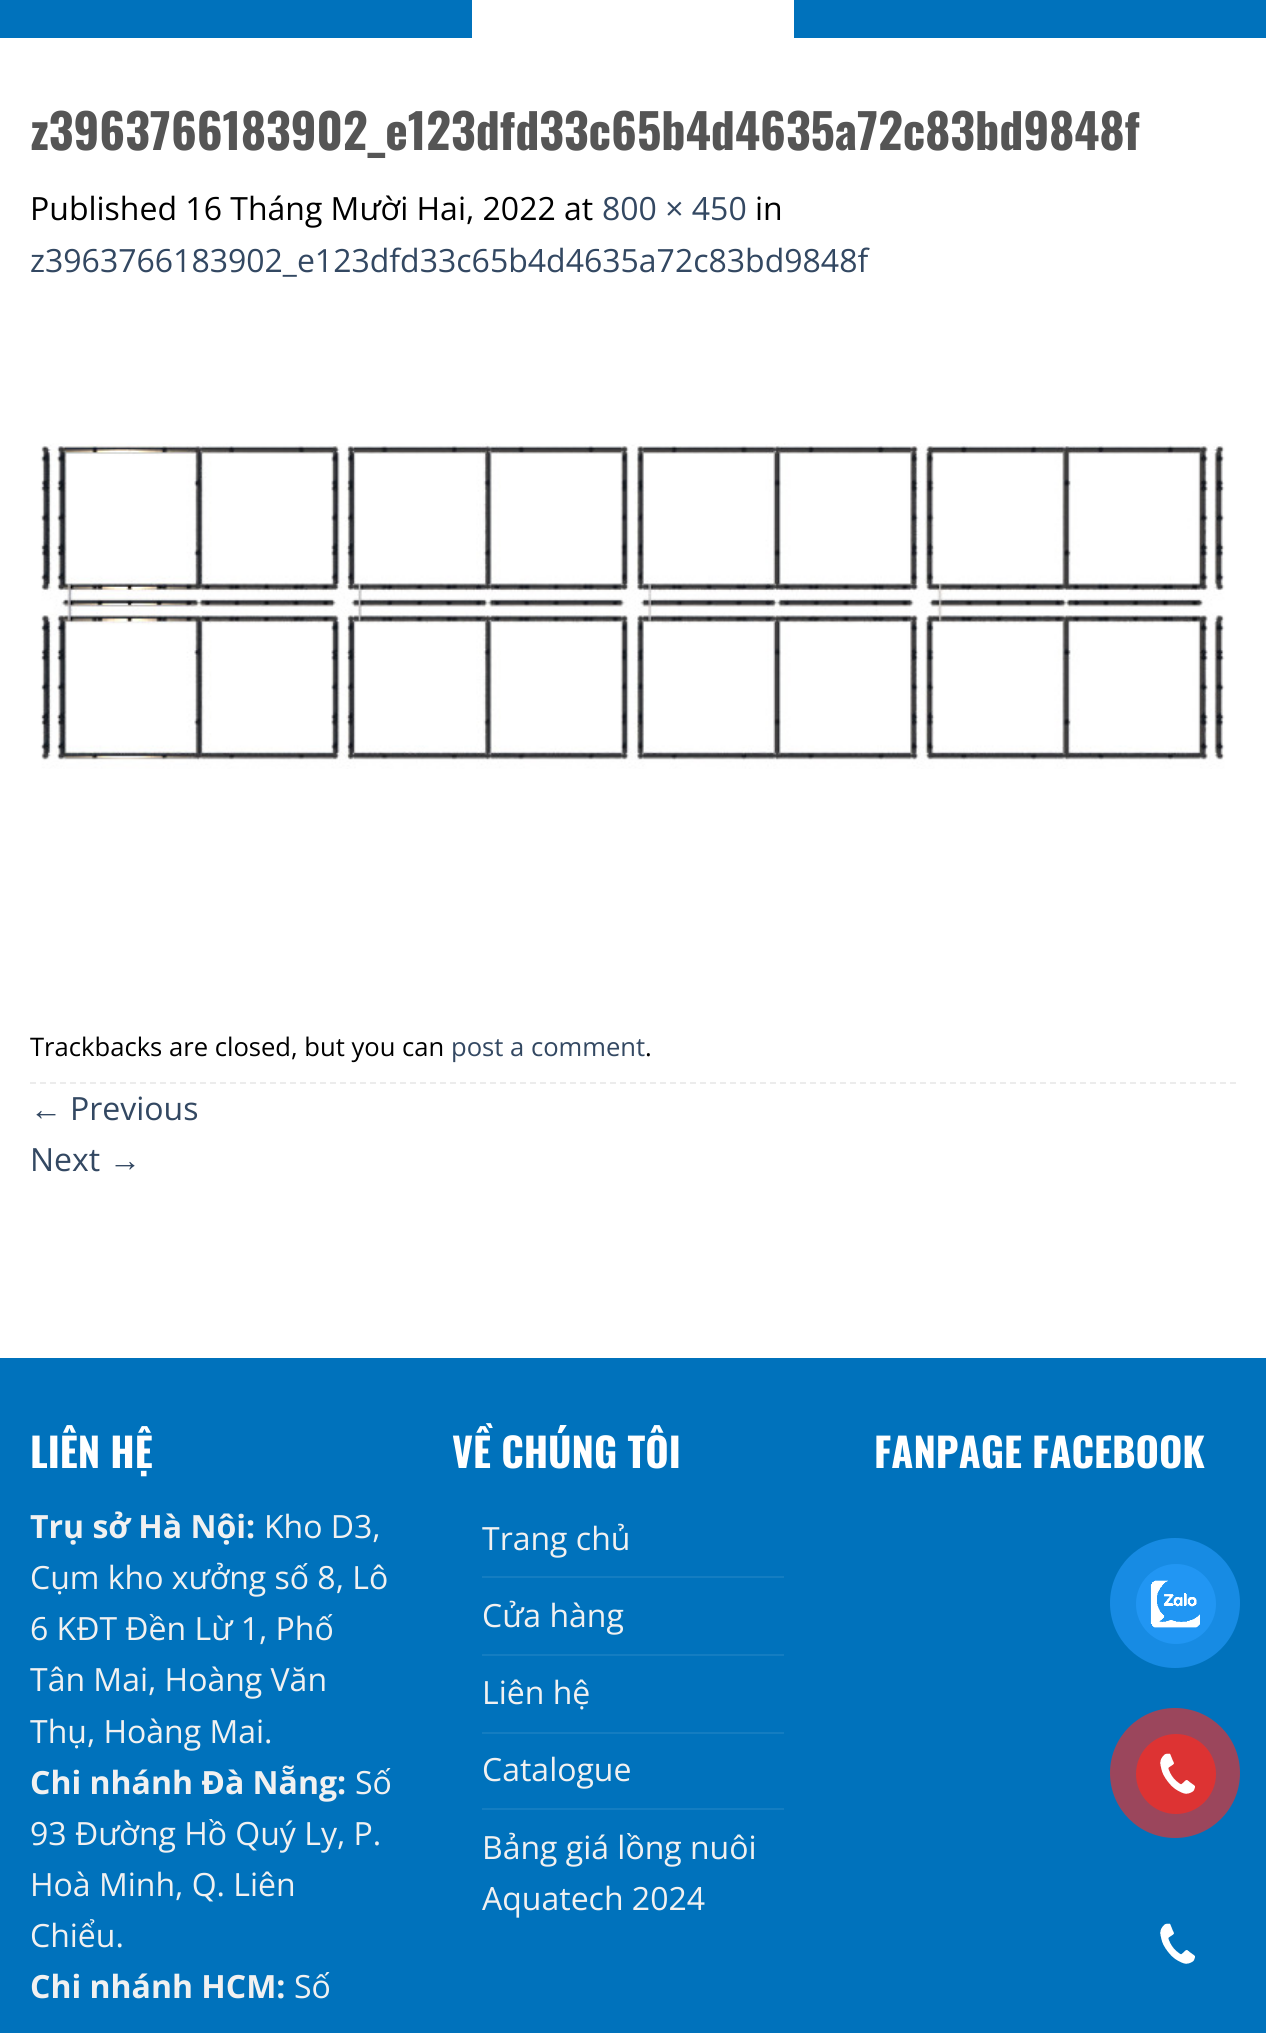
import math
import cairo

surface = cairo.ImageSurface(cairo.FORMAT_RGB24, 1266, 2033)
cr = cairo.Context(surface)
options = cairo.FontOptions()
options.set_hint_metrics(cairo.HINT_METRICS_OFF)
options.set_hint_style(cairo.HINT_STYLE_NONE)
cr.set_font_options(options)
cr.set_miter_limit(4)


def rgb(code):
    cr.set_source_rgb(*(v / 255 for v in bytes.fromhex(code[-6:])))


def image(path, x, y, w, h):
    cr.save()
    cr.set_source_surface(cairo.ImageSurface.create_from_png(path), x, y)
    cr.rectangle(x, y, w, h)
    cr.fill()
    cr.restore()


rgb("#ffffff")
cr.paint()
rgb("#0072bc")
cr.rectangle(0, 0, 1266, 38)
cr.fill()
rgb("#ffffff")
cr.rectangle(472, 0, 322, 38)
cr.fill()
image("img/1.png", 40, 443, 1185, 326)
cr.new_path()
cr.move_to(30, 1083)
cr.line_to(1236, 1083)
rgb("#ececec")
cr.set_dash([6, 4])
cr.stroke()
for x, y, w, h, color in [
    (0, 1358, 1266, 675, "#0072bc"),
    (482, 1576, 302, 2, "#147dc1"),
    (482, 1654, 302, 2, "#147dc1"),
    (482, 1732, 302, 2, "#147dc1"),
    (482, 1808, 302, 2, "#147dc1"),
]:
    rgb(color)
    cr.rectangle(x, y, w, h)
    cr.fill()
rgb("#178be3")
cr.arc(1175, 1603, 65, 0, 2 * math.pi)
cr.fill()
rgb("#2196f3")
cr.arc(1176, 1604, 40, 0, 2 * math.pi)
cr.fill()
image("img/2.png", 1150, 1580, 50, 48)
rgb("#9b465c")
cr.arc(1175, 1773, 65, 0, 2 * math.pi)
cr.fill()
rgb("#dd3333")
cr.arc(1176, 1774, 40, 0, 2 * math.pi)
cr.fill()
image("img/3.png", 1160, 1753, 35, 41)
image("img/4.png", 1160, 1923, 35, 41)
cr.select_font_face("Oswald", cairo.FONT_SLANT_NORMAL, cairo.FONT_WEIGHT_BOLD)
cr.set_font_size(48)
rgb("#555555")
cr.move_to(30, 150)
cr.show_text("z3963766183902_e123dfd33c65b4d4635a72c83bd9848f")
cr.select_font_face("Open Sans")
cr.set_font_size(32)
rgb("#000000")
cr.move_to(30, 220)
cr.show_text("Published 16 Tháng Mười Hai, 2022 at")
rgb("#334862")
cr.move_to(602, 220)
cr.show_text("800 × 450")
rgb("#000000")
cr.move_to(755, 220)
cr.show_text("in")
rgb("#334862")
cr.move_to(30, 272)
cr.show_text("z3963766183902_e123dfd33c65b4d4635a72c83bd9848f")
cr.set_font_size(25.6)
rgb("#000000")
cr.move_to(30, 1056)
cr.show_text("Trackbacks are closed, but you can")
rgb("#334862")
cr.move_to(451, 1056)
cr.show_text("post a comment")
rgb("#000000")
cr.move_to(645, 1056)
cr.show_text(".")
cr.select_font_face("Liberation Sans")
cr.set_font_size(32)
rgb("#334862")
cr.move_to(30, 1120)
cr.show_text("←")
cr.select_font_face("Open Sans")
cr.move_to(70, 1120)
cr.show_text("Previous")
cr.move_to(30, 1171)
cr.show_text("Next")
cr.select_font_face("Liberation Sans")
cr.move_to(109, 1171)
cr.show_text("→")
cr.select_font_face("Oswald", cairo.FONT_SLANT_NORMAL, cairo.FONT_WEIGHT_BOLD)
cr.set_font_size(40)
rgb("#ffffff")
cr.move_to(30, 1468)
cr.show_text("LIÊN HỆ")
cr.select_font_face("Open Sans", cairo.FONT_SLANT_NORMAL, cairo.FONT_WEIGHT_BOLD)
cr.set_font_size(32)
rgb("#f1f1f1")
cr.move_to(30, 1538)
cr.show_text("Trụ sở Hà Nội:")
cr.select_font_face("Open Sans")
for x, y, s in [
    (264, 1538, "Kho D3,"),
    (30, 1589, "Cụm kho xưởng số 8, Lô"),
    (30, 1640, "6 KĐT Đền Lừ 1, Phố"),
    (30, 1691, "Tân Mai, Hoàng Văn"),
    (30, 1743, "Thụ, Hoàng Mai."),
]:
    cr.move_to(x, y)
    cr.show_text(s)
cr.select_font_face("Open Sans", cairo.FONT_SLANT_NORMAL, cairo.FONT_WEIGHT_BOLD)
cr.move_to(30, 1794)
cr.show_text("Chi nhánh Đà Nẵng:")
cr.select_font_face("Open Sans")
for x, y, s in [
    (355, 1794, "Số"),
    (30, 1845, "93 Đường Hồ Quý Ly, P."),
    (30, 1896, "Hoà Minh, Q. Liên"),
    (30, 1947, "Chiểu."),
]:
    cr.move_to(x, y)
    cr.show_text(s)
cr.select_font_face("Open Sans", cairo.FONT_SLANT_NORMAL, cairo.FONT_WEIGHT_BOLD)
cr.move_to(30, 1998)
cr.show_text("Chi nhánh HCM:")
cr.select_font_face("Open Sans")
cr.move_to(294, 1998)
cr.show_text("Số")
cr.select_font_face("Oswald", cairo.FONT_SLANT_NORMAL, cairo.FONT_WEIGHT_BOLD)
cr.set_font_size(40)
rgb("#ffffff")
cr.move_to(452, 1468)
cr.show_text("VỀ CHÚNG TÔI")
cr.select_font_face("Open Sans")
cr.set_font_size(32)
rgb("#f1f1f1")
for x, y, s in [
    (482, 1550, "Trang chủ"),
    (482, 1627, "Cửa hàng"),
    (482, 1704, "Liên hệ"),
    (482, 1781, "Catalogue"),
    (482, 1859, "Bảng giá lồng nuôi"),
    (482, 1910, "Aquatech 2024"),
]:
    cr.move_to(x, y)
    cr.show_text(s)
cr.select_font_face("Oswald", cairo.FONT_SLANT_NORMAL, cairo.FONT_WEIGHT_BOLD)
cr.set_font_size(40)
rgb("#ffffff")
cr.move_to(874, 1468)
cr.show_text("FANPAGE FACEBOOK")
surface.write_to_png("page.png")
